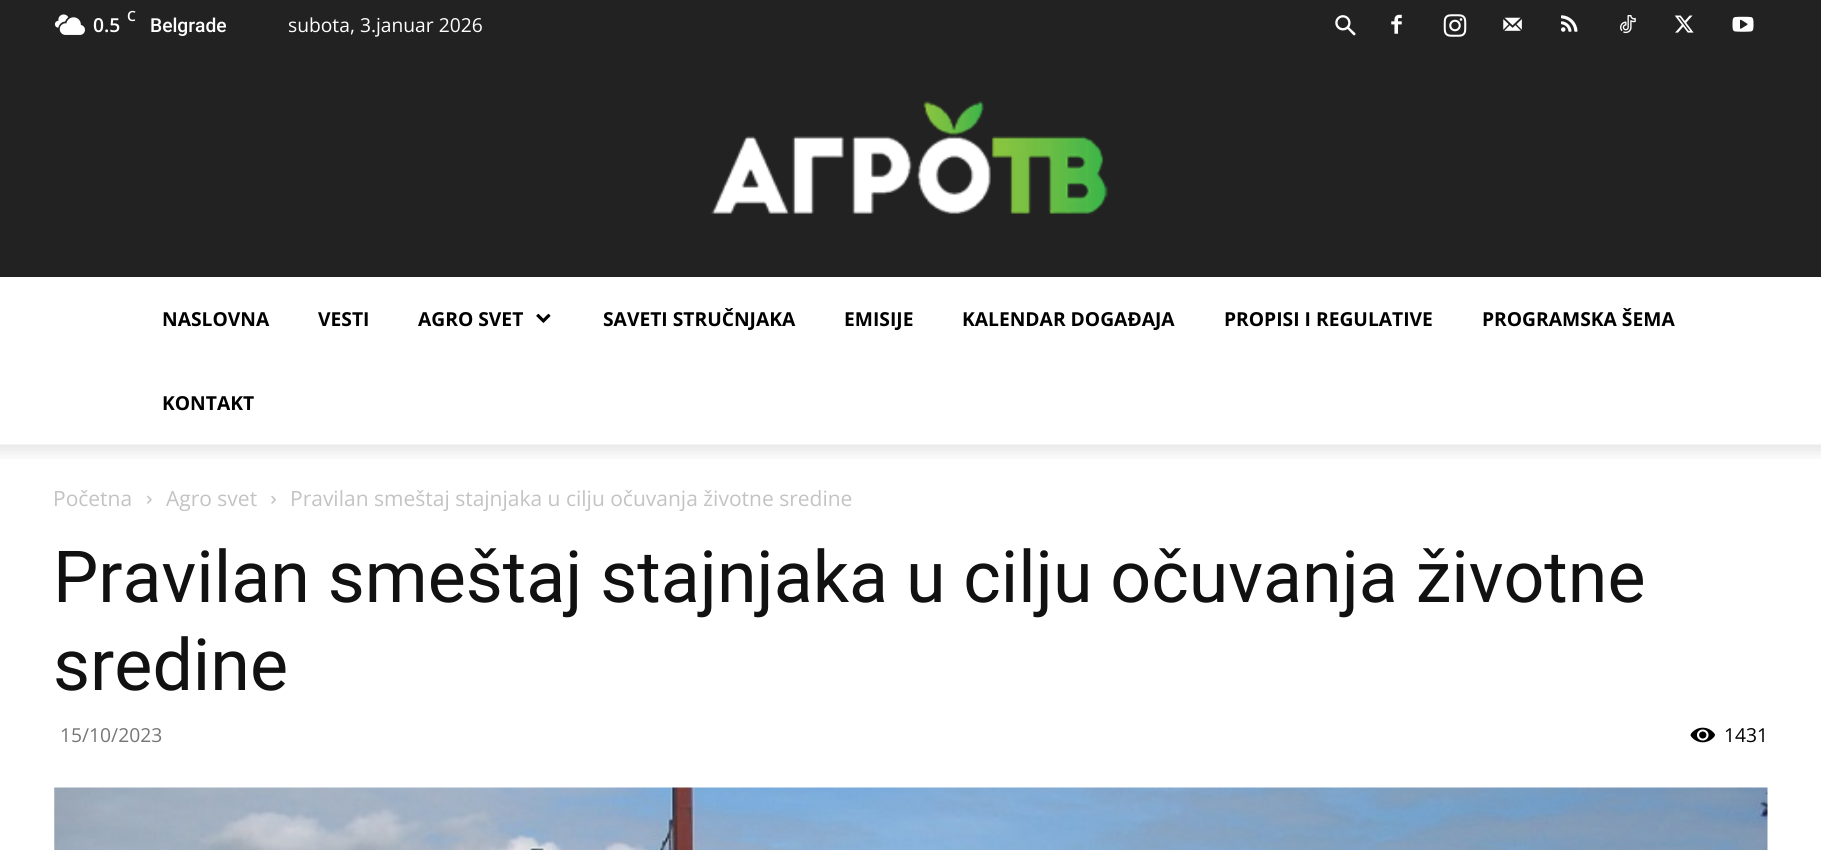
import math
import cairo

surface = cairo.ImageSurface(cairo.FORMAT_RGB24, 1821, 850)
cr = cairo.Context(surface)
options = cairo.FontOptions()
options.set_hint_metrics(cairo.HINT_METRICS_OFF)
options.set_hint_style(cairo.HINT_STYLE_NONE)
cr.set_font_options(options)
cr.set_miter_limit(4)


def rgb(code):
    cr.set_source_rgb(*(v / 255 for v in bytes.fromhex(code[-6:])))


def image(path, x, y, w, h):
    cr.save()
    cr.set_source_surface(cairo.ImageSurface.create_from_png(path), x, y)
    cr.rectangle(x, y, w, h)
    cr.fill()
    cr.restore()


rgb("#ffffff")
cr.paint()
rgb("#222222")
cr.rectangle(0, 0, 1821, 277)
cr.fill()
image("img/1.png", 710, 101, 399, 113)
image("img/2.png", 54, 14, 31, 21)
image("img/3.png", 1335, 15, 21, 21)
image("img/4.png", 1391, 14, 11, 20)
image("img/5.png", 1443, 14, 24, 23)
image("img/6.png", 1503, 17, 19, 14)
image("img/7.png", 1561, 15, 17, 17)
image("img/8.png", 1620, 15, 16, 19)
image("img/9.png", 1674, 15, 20, 18)
image("img/10.png", 1732, 16, 22, 16)
image("img/11.png", 536, 313, 15, 10)
image("img/12.png", 0, 444, 1821, 15)
image("img/13.png", 147, 495, 5, 9)
image("img/14.png", 271, 495, 5, 9)
image("img/15.png", 1690, 727, 25, 16)
image("img/16.png", 54, 787, 1714, 63)
cr.select_font_face("Open Sans SemiBold")
cr.set_font_size(14)
rgb("#ffffff")
cr.move_to(127, 21)
cr.show_text("C")
cr.set_font_size(19.25)
cr.move_to(93, 32)
cr.show_text("0.5")
cr.select_font_face("Roboto Medium")
cr.move_to(150, 32)
cr.show_text("Belgrade")
cr.select_font_face("Open Sans")
cr.move_to(288, 32)
cr.show_text("subota, 3.januar 2026")
cr.select_font_face("Open Sans", cairo.FONT_SLANT_NORMAL, cairo.FONT_WEIGHT_BOLD)
rgb("#000000")
for x, y, s in [
    (162, 326, "NASLOVNA"),
    (318, 326, "VESTI"),
    (418, 326, "AGRO SVET"),
    (603, 326, "SAVETI STRUČNJAKA"),
    (844, 326, "EMISIJE"),
    (962, 326, "KALENDAR DOGAĐAJA"),
    (1224, 326, "PROPISI I REGULATIVE"),
    (1482, 326, "PROGRAMSKA ŠEMA"),
    (162, 410, "KONTAKT"),
]:
    cr.move_to(x, y)
    cr.show_text(s)
cr.select_font_face("Open Sans")
cr.set_font_size(21)
rgb("#c3c3c3")
for x, y, s in [
    (53, 506, "Početna"),
    (166, 506, "Agro svet"),
    (290, 506, "Pravilan smeštaj stajnjaka u cilju očuvanja životne sredine"),
]:
    cr.move_to(x, y)
    cr.show_text(s)
cr.select_font_face("Roboto")
cr.set_font_size(71.75)
rgb("#111111")
cr.move_to(53, 602)
cr.show_text("Pravilan smeštaj stajnjaka u cilju očuvanja životne")
cr.move_to(53, 690)
cr.show_text("sredine")
cr.select_font_face("Open Sans")
cr.set_font_size(19.25)
rgb("#767676")
cr.move_to(60, 742)
cr.show_text("15/10/2023")
rgb("#000000")
cr.move_to(1724, 742)
cr.show_text("1431")
surface.write_to_png("page.png")
